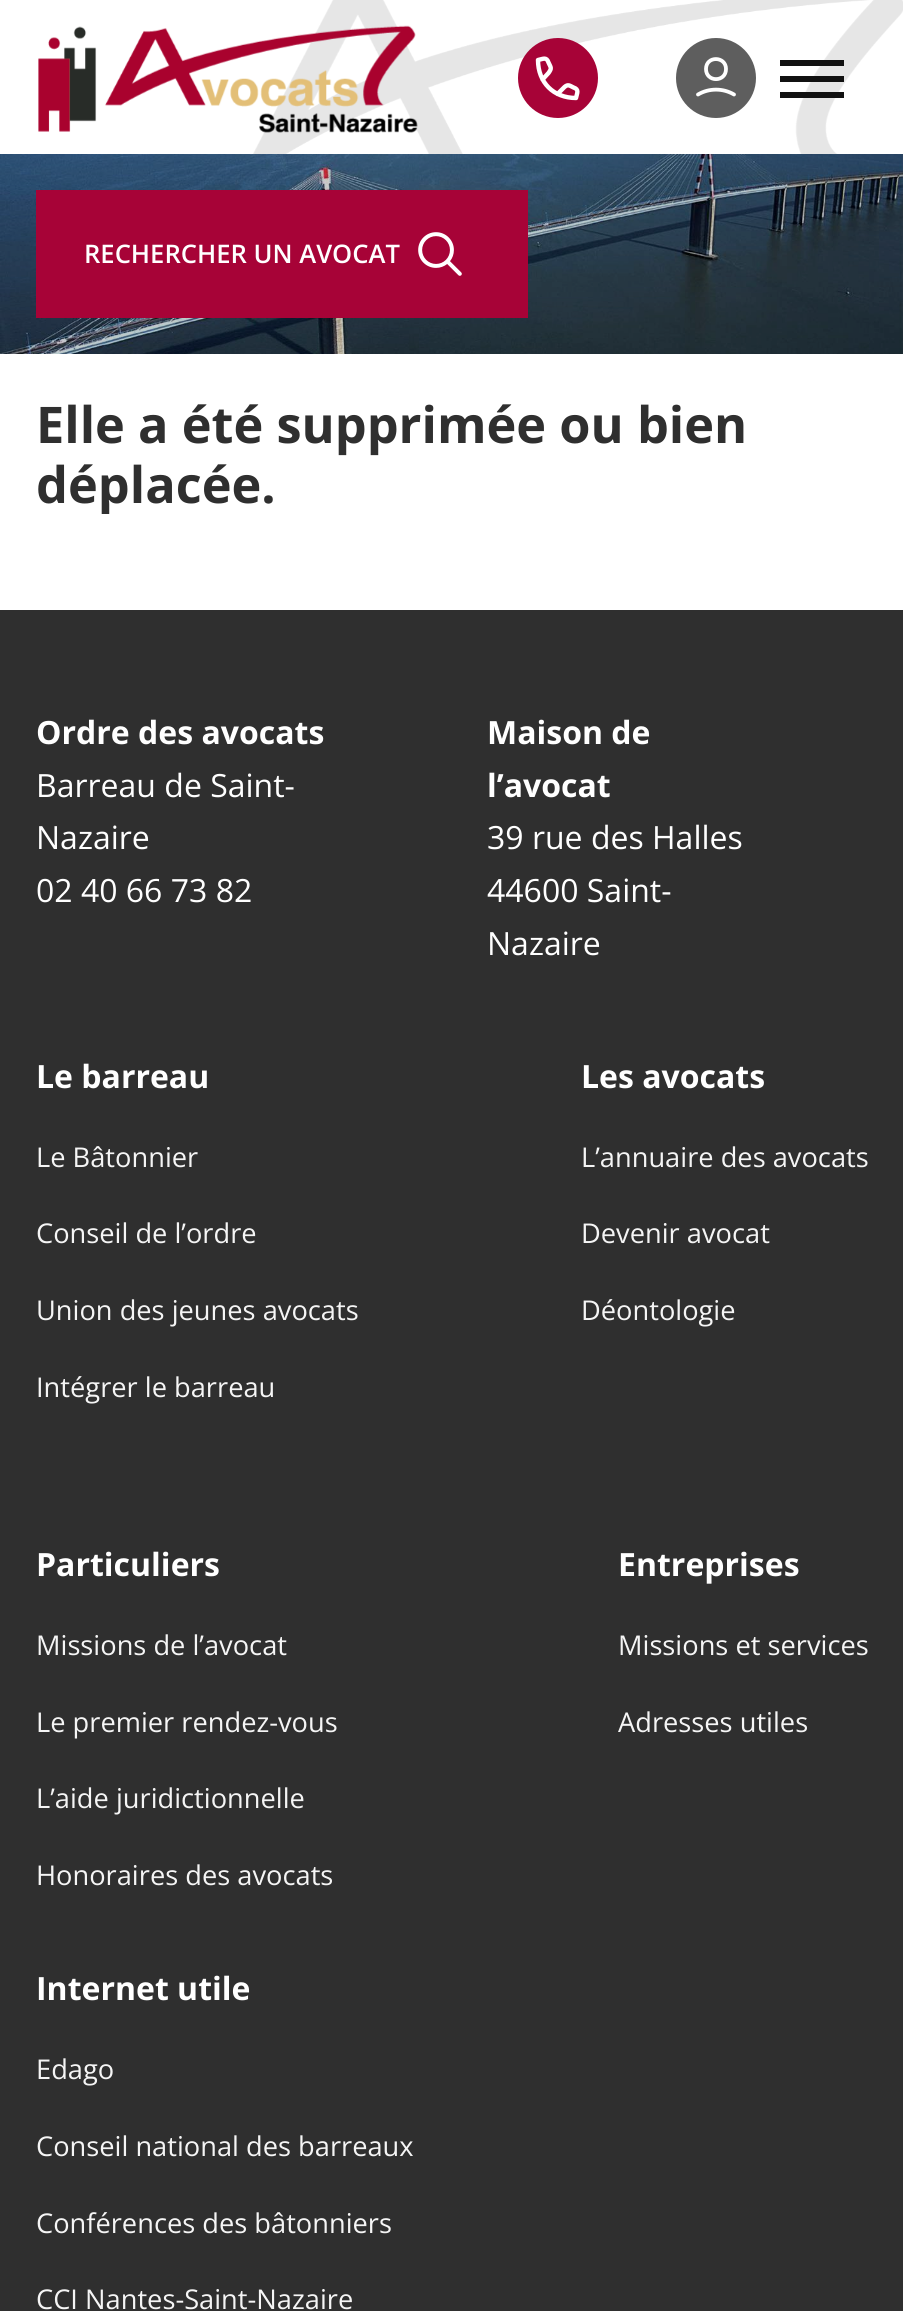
import math
import cairo

surface = cairo.ImageSurface(cairo.FORMAT_RGB24, 903, 2311)
cr = cairo.Context(surface)
options = cairo.FontOptions()
options.set_hint_metrics(cairo.HINT_METRICS_OFF)
options.set_hint_style(cairo.HINT_STYLE_NONE)
cr.set_font_options(options)
cr.set_miter_limit(4)


def rgb(code):
    cr.set_source_rgb(*(v / 255 for v in bytes.fromhex(code[-6:])))


def image(path, x, y, w, h):
    cr.save()
    cr.set_source_surface(cairo.ImageSurface.create_from_png(path), x, y)
    cr.rectangle(x, y, w, h)
    cr.fill()
    cr.restore()


rgb("#ffffff")
cr.paint()
image("img/1.png", 253, 0, 650, 154)
image("img/2.png", 38, 25, 380, 108)
rgb("#a70337")
cr.arc(558, 78, 40, 0, 2 * math.pi)
cr.fill()
cr.new_path()
cr.move_to(542.5, 79.5)
cr.line_to(548.5, 73)
cr.curve_to(552, 68, 551, 68, 548.5, 62.5)
cr.curve_to(546.5, 56.5, 543, 59, 538, 60)
cr.curve_to(538, 82.5, 553.5, 98, 576, 98)
cr.curve_to(577, 93, 579.5, 89.5, 573.5, 87.5)
cr.curve_to(569.5, 85.5, 568, 84, 564.5, 87)
cr.line_to(557.5, 94)
rgb("#ffffff")
cr.set_line_width(4.4)
cr.set_line_cap(cairo.LINE_CAP_ROUND)
cr.set_line_join(cairo.LINE_JOIN_ROUND)
cr.stroke()
rgb("#5e5e5e")
cr.arc(716, 78, 40, 0, 2 * math.pi)
cr.fill()
cr.new_path()
cr.move_to(726, 69)
cr.curve_to(726, 82.5, 706, 82.5, 706, 69)
cr.curve_to(706, 55.5, 726, 56, 726, 69)
cr.close_path()
rgb("#ffffff")
cr.set_line_width(3.8)
cr.stroke()
cr.new_path()
cr.move_to(698, 94.5)
cr.curve_to(709, 88, 723, 88, 734, 94.5)
cr.set_line_join(cairo.LINE_JOIN_MITER)
cr.stroke()
for x, y, w, h, color in [
    (780, 60, 64, 6, "#111111"),
    (780, 76, 64, 6, "#111111"),
    (780, 92, 64, 6, "#111111"),
]:
    rgb(color)
    cr.rectangle(x, y, w, h)
    cr.fill()
image("img/3.png", 0, 154, 903, 200)
rgb("#a70337")
cr.rectangle(36, 190, 492, 128)
cr.fill()
image("img/4.png", 418, 232, 44, 44)
rgb("#2f2f2f")
cr.rectangle(0, 610, 903, 1701)
cr.fill()
cr.select_font_face("Open Sans SemiBold")
cr.set_font_size(25.6)
rgb("#ffffff")
cr.move_to(84, 263)
cr.show_text("RECHERCHER UN AVOCAT")
cr.select_font_face("Open Sans", cairo.FONT_SLANT_NORMAL, cairo.FONT_WEIGHT_BOLD)
cr.set_font_size(50.5)
rgb("#2f2f2f")
cr.move_to(36, 443)
cr.show_text("Elle a été supprimée ou bien")
cr.save()
cr.rectangle(0, 154, 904, 360)
cr.clip()
cr.move_to(36, 503)
cr.show_text("déplacée.")
cr.restore()
cr.set_font_size(32)
rgb("#ffffff")
cr.move_to(36, 744)
cr.show_text("Ordre des avocats")
cr.select_font_face("Open Sans")
for x, y, s in [
    (36, 797, "Barreau de Saint-"),
    (36, 849, "Nazaire"),
    (36, 902, "02 40 66 73 82"),
]:
    cr.move_to(x, y)
    cr.show_text(s)
cr.select_font_face("Open Sans", cairo.FONT_SLANT_NORMAL, cairo.FONT_WEIGHT_BOLD)
cr.move_to(487, 744)
cr.show_text("Maison de")
cr.move_to(487, 797)
cr.show_text("l’avocat")
cr.select_font_face("Open Sans")
for x, y, s in [
    (487, 849, "39 rue des Halles"),
    (487, 902, "44600 Saint-"),
    (487, 955, "Nazaire"),
]:
    cr.move_to(x, y)
    cr.show_text(s)
cr.select_font_face("Open Sans", cairo.FONT_SLANT_NORMAL, cairo.FONT_WEIGHT_BOLD)
cr.move_to(36, 1088)
cr.show_text("Le barreau")
cr.select_font_face("Open Sans")
cr.set_font_size(27.25)
rgb("#f5f5f5")
for x, y, s in [
    (36, 1167, "Le Bâtonnier"),
    (36, 1243, "Conseil de l’ordre"),
    (36, 1320, "Union des jeunes avocats"),
    (36, 1397, "Intégrer le barreau"),
]:
    cr.move_to(x, y)
    cr.show_text(s)
cr.select_font_face("Open Sans", cairo.FONT_SLANT_NORMAL, cairo.FONT_WEIGHT_BOLD)
cr.set_font_size(32)
rgb("#ffffff")
cr.move_to(581, 1088)
cr.show_text("Les avocats")
cr.select_font_face("Open Sans")
cr.set_font_size(27.25)
rgb("#f5f5f5")
for x, y, s in [
    (581, 1167, "L’annuaire des avocats"),
    (581, 1243, "Devenir avocat"),
    (581, 1320, "Déontologie"),
]:
    cr.move_to(x, y)
    cr.show_text(s)
cr.select_font_face("Open Sans", cairo.FONT_SLANT_NORMAL, cairo.FONT_WEIGHT_BOLD)
cr.set_font_size(32)
rgb("#ffffff")
cr.move_to(36, 1576)
cr.show_text("Particuliers")
cr.select_font_face("Open Sans")
cr.set_font_size(27.25)
rgb("#f5f5f5")
for x, y, s in [
    (36, 1655, "Missions de l’avocat"),
    (36, 1732, "Le premier rendez-vous"),
    (36, 1808, "L’aide juridictionnelle"),
    (36, 1885, "Honoraires des avocats"),
]:
    cr.move_to(x, y)
    cr.show_text(s)
cr.select_font_face("Open Sans", cairo.FONT_SLANT_NORMAL, cairo.FONT_WEIGHT_BOLD)
cr.set_font_size(32)
rgb("#ffffff")
cr.move_to(618, 1576)
cr.show_text("Entreprises")
cr.select_font_face("Open Sans")
cr.set_font_size(27.25)
rgb("#f5f5f5")
cr.move_to(618, 1655)
cr.show_text("Missions et services")
cr.move_to(618, 1732)
cr.show_text("Adresses utiles")
cr.select_font_face("Open Sans", cairo.FONT_SLANT_NORMAL, cairo.FONT_WEIGHT_BOLD)
cr.set_font_size(32)
rgb("#ffffff")
cr.move_to(36, 2000)
cr.show_text("Internet utile")
cr.select_font_face("Open Sans")
cr.set_font_size(27.25)
rgb("#f5f5f5")
for x, y, s in [
    (36, 2079, "Edago"),
    (36, 2156, "Conseil national des barreaux"),
    (36, 2233, "Conférences des bâtonniers"),
    (36, 2309, "CCI Nantes-Saint-Nazaire"),
]:
    cr.move_to(x, y)
    cr.show_text(s)
surface.write_to_png("page.png")
